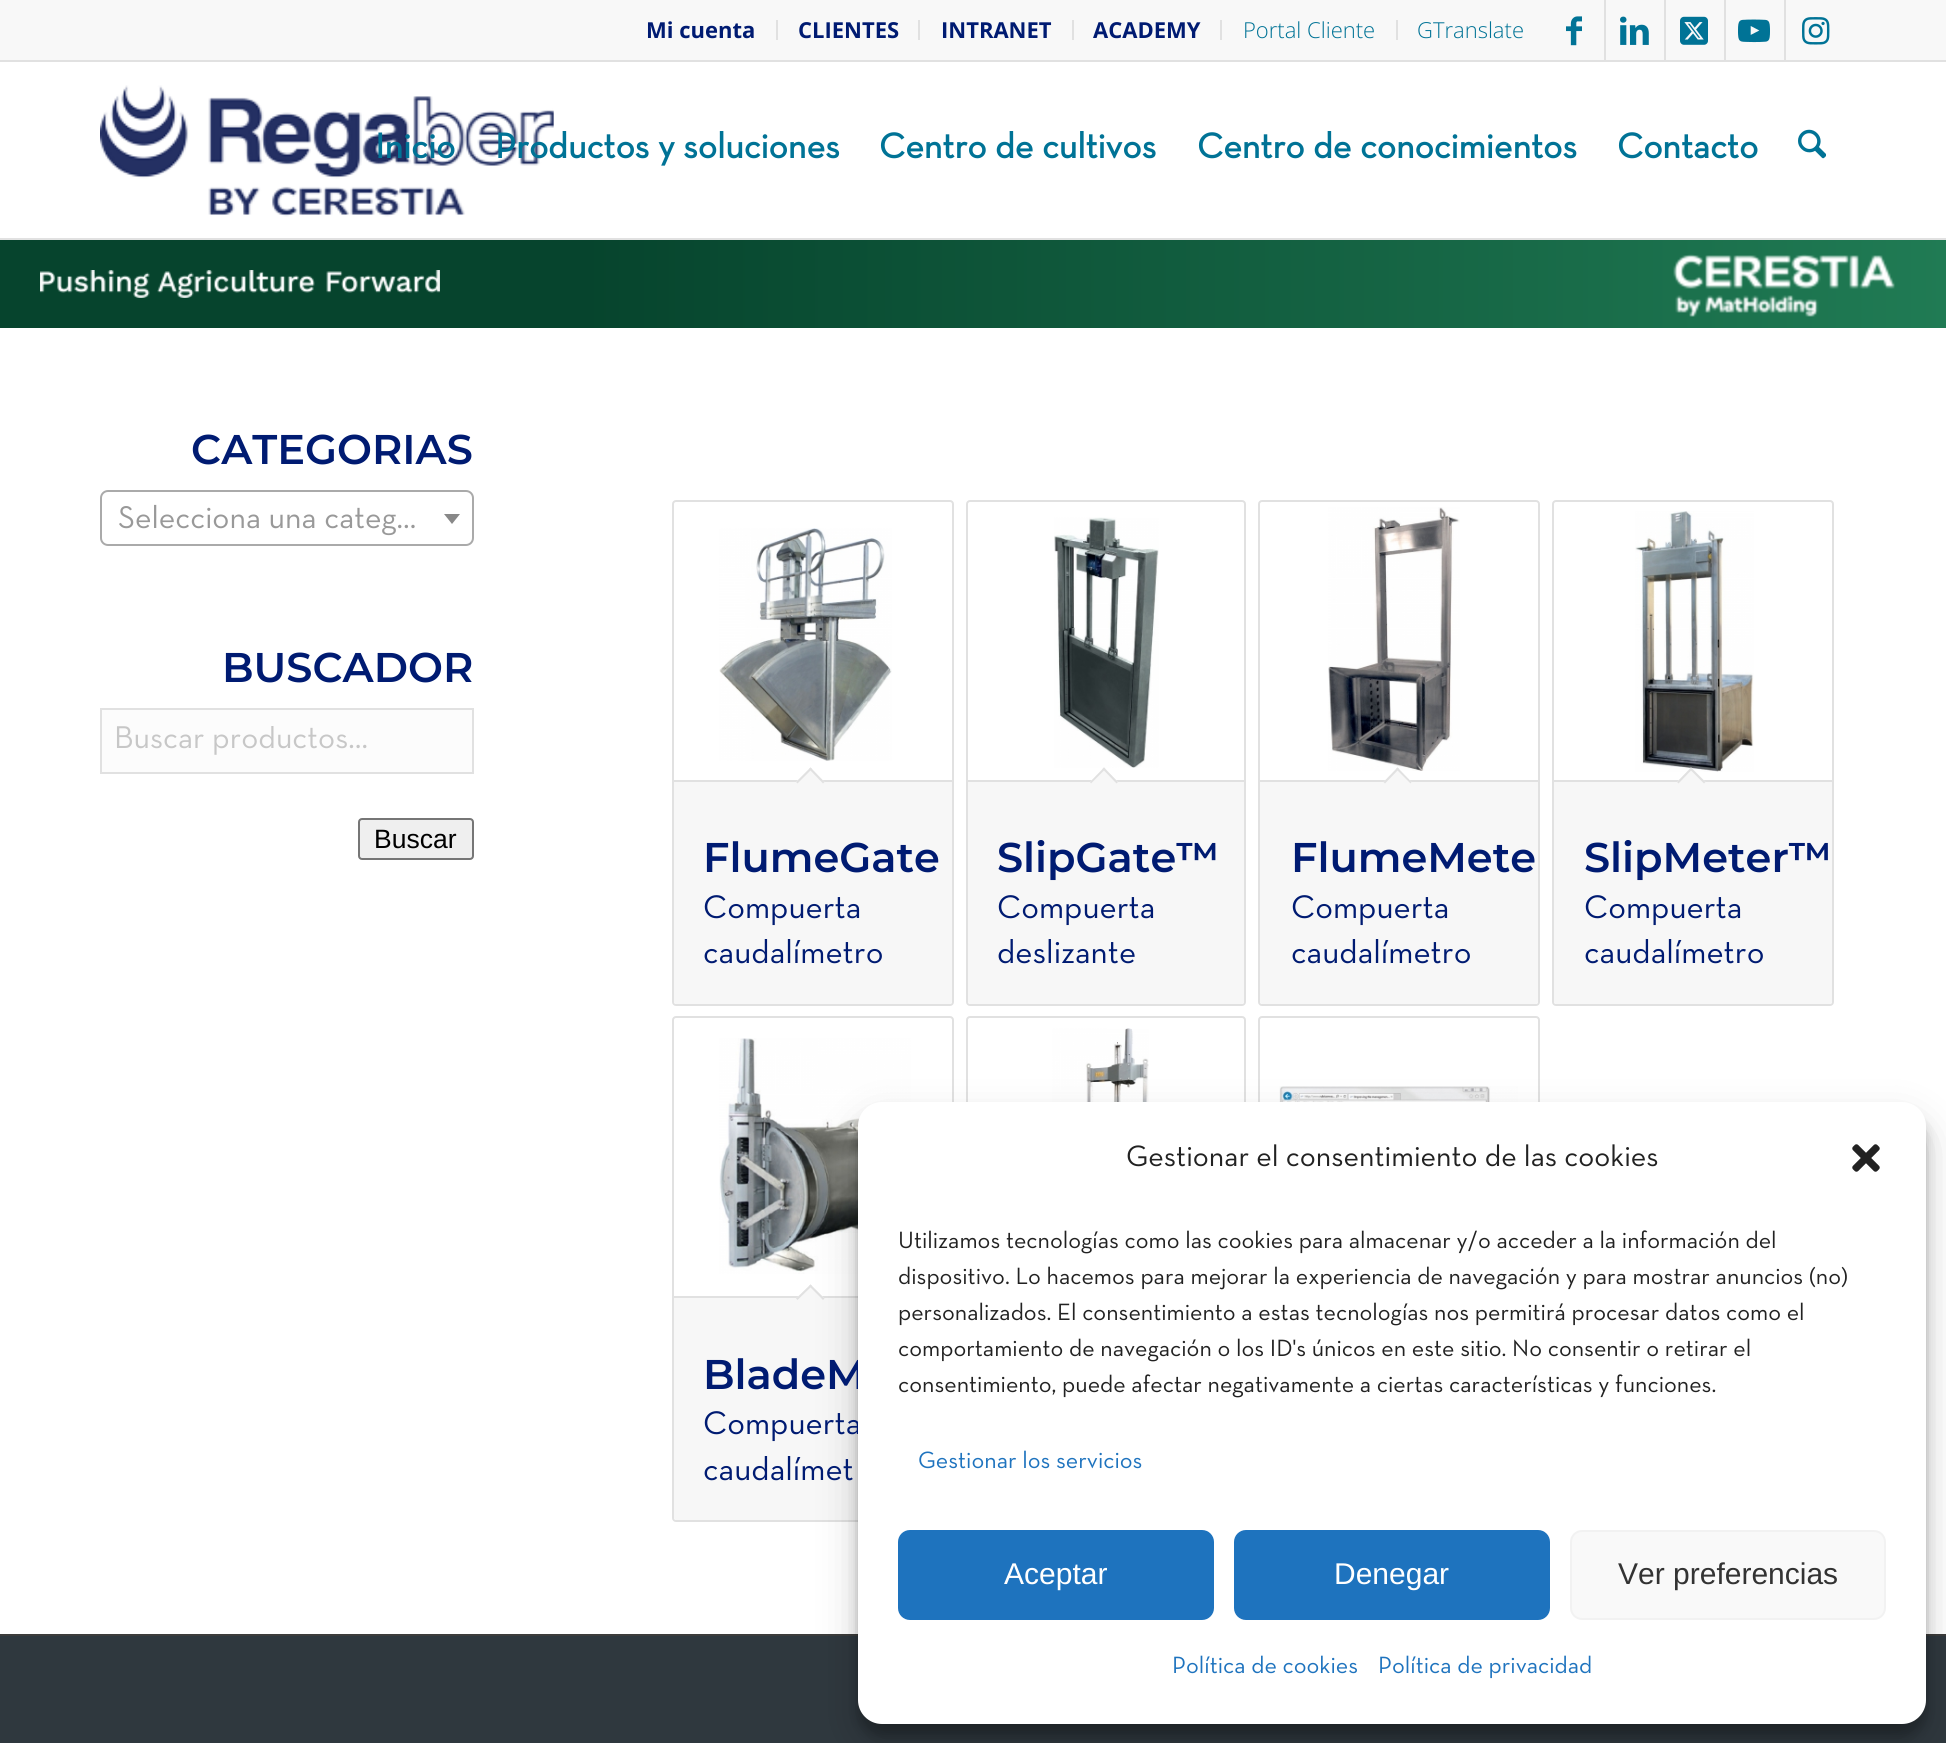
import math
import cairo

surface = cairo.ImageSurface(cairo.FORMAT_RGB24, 1946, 1743)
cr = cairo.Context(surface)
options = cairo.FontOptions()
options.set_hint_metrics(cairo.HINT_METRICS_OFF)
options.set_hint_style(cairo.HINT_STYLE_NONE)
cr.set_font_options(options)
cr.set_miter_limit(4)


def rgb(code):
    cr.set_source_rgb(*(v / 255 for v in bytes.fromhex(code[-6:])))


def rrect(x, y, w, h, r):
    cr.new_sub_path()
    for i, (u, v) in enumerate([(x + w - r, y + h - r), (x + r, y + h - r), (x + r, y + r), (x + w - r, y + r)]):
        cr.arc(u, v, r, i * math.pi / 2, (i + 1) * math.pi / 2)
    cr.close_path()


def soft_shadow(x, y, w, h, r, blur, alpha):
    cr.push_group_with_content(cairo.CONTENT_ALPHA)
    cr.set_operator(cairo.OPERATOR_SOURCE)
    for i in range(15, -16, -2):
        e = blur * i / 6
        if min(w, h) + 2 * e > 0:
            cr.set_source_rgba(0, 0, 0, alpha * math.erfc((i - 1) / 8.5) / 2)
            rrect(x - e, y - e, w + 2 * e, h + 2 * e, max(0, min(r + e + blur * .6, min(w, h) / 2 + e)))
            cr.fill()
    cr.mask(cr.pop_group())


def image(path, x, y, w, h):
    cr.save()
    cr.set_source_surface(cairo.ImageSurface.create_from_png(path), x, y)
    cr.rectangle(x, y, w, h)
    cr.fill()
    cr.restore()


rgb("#ffffff")
cr.paint()
for x, y, w, h, color in [
    (0, 0, 1946, 60, "#f8f8f8"),
    (0, 60, 1946, 2, "#e1e1e1"),
    (776, 20, 2, 20, "#e1e1e1"),
    (918, 20, 2, 20, "#e1e1e1"),
    (1072, 20, 2, 20, "#e1e1e1"),
    (1220, 20, 2, 20, "#e1e1e1"),
    (1396, 20, 2, 20, "#e1e1e1"),
    (1604, 0, 2, 60, "#e1e1e1"),
]:
    rgb(color)
    cr.rectangle(x, y, w, h)
    cr.fill()
image("img/1.png", 1566, 16, 16, 30)
cr.rectangle(1664, 0, 2, 60)
cr.fill()
image("img/2.png", 1620, 16, 29, 29)
cr.rectangle(1724, 0, 2, 60)
cr.fill()
image("img/3.png", 1680, 16, 28, 29)
cr.rectangle(1784, 0, 2, 60)
cr.fill()
image("img/4.png", 1738, 19, 32, 24)
image("img/5.png", 1802, 17, 28, 28)
cr.rectangle(0, 238, 1946, 2)
cr.fill()
image("img/6.png", 100, 85, 454, 132)
image("img/7.png", 1798, 129, 28, 30)
gradient = cairo.LinearGradient(0, 284, 1946, 284)
gradient.add_color_stop_rgba(0.3, 0.024, 0.267, 0.176, 1)
gradient.add_color_stop_rgba(1, 0.125, 0.482, 0.329, 1)
cr.set_source(gradient)
cr.rectangle(0, 240, 1946, 88)
cr.fill()
image("img/8.png", 40, 270, 400, 28)
image("img/9.png", 1673, 254, 222, 63)
rrect(101, 491, 372, 54, 7)
rgb("#aaaaaa")
cr.stroke()
rgb("#888888")
cr.new_path()
cr.move_to(444, 514)
cr.line_to(460, 514)
cr.line_to(452, 524)
cr.close_path()
cr.fill()
rgb("#fcfcfc")
cr.rectangle(101, 709, 372, 64)
cr.fill_preserve()
rgb("#e1e1e1")
cr.stroke()
rgb("#efefef")
rrect(359, 819, 114, 40, 3)
cr.fill_preserve()
rgb("#767676")
cr.stroke()
rrect(673, 501, 280, 504, 3)
rgb("#e1e1e1")
cr.stroke()
image("img/10.png", 719, 528, 173, 233)
rgb("#f7f7f7")
cr.new_path()
cr.move_to(674, 780)
cr.line_to(952, 780)
cr.line_to(952, 1002)
cr.curve_to(952, 1003, 951, 1004, 950, 1004)
cr.line_to(676, 1004)
cr.curve_to(675, 1004, 674, 1003, 674, 1002)
cr.close_path()
cr.fill()
rgb("#e1e1e1")
cr.rectangle(674, 780, 278, 2)
cr.fill()
rgb("#f7f7f7")
cr.new_path()
cr.move_to(810.5, 767.5)
cr.line_to(824.5, 782)
cr.line_to(810.5, 796)
cr.line_to(796, 782)
cr.close_path()
cr.fill()
rgb("#e1e1e1")
cr.new_path()
cr.move_to(810.5, 767.5)
cr.line_to(824.5, 782)
cr.line_to(823, 783.5)
cr.line_to(809, 769)
cr.close_path()
cr.fill()
cr.new_path()
cr.move_to(810.5, 767.5)
cr.line_to(812, 769)
cr.line_to(797.5, 783.5)
cr.line_to(796, 782)
cr.close_path()
cr.fill()
rrect(967, 501, 278, 504, 3)
cr.stroke()
image("img/11.png", 1054, 517, 105, 251)
rgb("#f7f7f7")
cr.new_path()
cr.move_to(968, 780)
cr.line_to(1244, 780)
cr.line_to(1244, 1002)
cr.curve_to(1244, 1003, 1243, 1004, 1242, 1004)
cr.line_to(970, 1004)
cr.curve_to(969, 1004, 968, 1003, 968, 1002)
cr.close_path()
cr.fill()
rgb("#e1e1e1")
cr.rectangle(968, 780, 276, 2)
cr.fill()
rgb("#f7f7f7")
cr.new_path()
cr.move_to(1104, 767.5)
cr.line_to(1118, 782)
cr.line_to(1104, 796)
cr.line_to(1090, 782)
cr.close_path()
cr.fill()
rgb("#e1e1e1")
cr.new_path()
cr.move_to(1104, 767.5)
cr.line_to(1118, 782)
cr.line_to(1116.5, 783.5)
cr.line_to(1102.5, 769)
cr.close_path()
cr.fill()
cr.new_path()
cr.move_to(1104, 767.5)
cr.line_to(1105.5, 769)
cr.line_to(1091, 783.5)
cr.line_to(1090, 782)
cr.close_path()
cr.fill()
rrect(1259, 501, 280, 504, 3)
cr.stroke()
image("img/12.png", 1328, 507, 132, 264)
rgb("#f7f7f7")
cr.new_path()
cr.move_to(1260, 780)
cr.line_to(1538, 780)
cr.line_to(1538, 1002)
cr.curve_to(1538, 1003, 1537, 1004, 1536, 1004)
cr.line_to(1262, 1004)
cr.curve_to(1261, 1004, 1260, 1003, 1260, 1002)
cr.close_path()
cr.fill()
rgb("#e1e1e1")
cr.rectangle(1260, 780, 278, 2)
cr.fill()
rgb("#f7f7f7")
cr.new_path()
cr.move_to(1397.5, 767.5)
cr.line_to(1411.5, 782)
cr.line_to(1397.5, 796)
cr.line_to(1383.5, 782)
cr.close_path()
cr.fill()
rgb("#e1e1e1")
cr.new_path()
cr.move_to(1397.5, 767.5)
cr.line_to(1411.5, 782)
cr.line_to(1410.5, 783.5)
cr.line_to(1396, 769)
cr.close_path()
cr.fill()
cr.new_path()
cr.move_to(1397.5, 767.5)
cr.line_to(1399, 769)
cr.line_to(1385, 783.5)
cr.line_to(1383.5, 782)
cr.close_path()
cr.fill()
rrect(1553, 501, 280, 504, 3)
cr.stroke()
image("img/13.png", 1635, 511, 119, 261)
rgb("#f7f7f7")
cr.new_path()
cr.move_to(1554, 780)
cr.line_to(1832, 780)
cr.line_to(1832, 1002)
cr.curve_to(1832, 1003, 1831, 1004, 1830, 1004)
cr.line_to(1556, 1004)
cr.curve_to(1555, 1004, 1554, 1003, 1554, 1002)
cr.close_path()
cr.fill()
rgb("#e1e1e1")
cr.rectangle(1554, 780, 278, 2)
cr.fill()
rgb("#f7f7f7")
cr.new_path()
cr.move_to(1691, 767.5)
cr.line_to(1705.5, 782)
cr.line_to(1691, 796)
cr.line_to(1677, 782)
cr.close_path()
cr.fill()
rgb("#e1e1e1")
cr.new_path()
cr.move_to(1691, 767.5)
cr.line_to(1705.5, 782)
cr.line_to(1704, 783.5)
cr.line_to(1689.5, 769)
cr.close_path()
cr.fill()
cr.new_path()
cr.move_to(1691, 767.5)
cr.line_to(1692.5, 769)
cr.line_to(1678.5, 783.5)
cr.line_to(1677, 782)
cr.close_path()
cr.fill()
rrect(673, 1017, 280, 504, 3)
cr.stroke()
image("img/14.png", 719, 1038, 192, 236)
rgb("#f7f7f7")
cr.new_path()
cr.move_to(674, 1296)
cr.line_to(952, 1296)
cr.line_to(952, 1518)
cr.curve_to(952, 1519, 951, 1520, 950, 1520)
cr.line_to(676, 1520)
cr.curve_to(675, 1520, 674, 1519, 674, 1518)
cr.close_path()
cr.fill()
rgb("#e1e1e1")
cr.rectangle(674, 1296, 184, 2)
cr.fill()
rgb("#f7f7f7")
cr.new_path()
cr.move_to(810.5, 1284.5)
cr.line_to(824.5, 1298.5)
cr.line_to(810.5, 1313)
cr.line_to(796, 1298.5)
cr.close_path()
cr.fill()
rgb("#e1e1e1")
cr.new_path()
cr.move_to(810.5, 1284.5)
cr.line_to(824.5, 1298.5)
cr.line_to(823, 1300)
cr.line_to(809, 1286)
cr.close_path()
cr.fill()
cr.new_path()
cr.move_to(810.5, 1284.5)
cr.line_to(812, 1286)
cr.line_to(797.5, 1300)
cr.line_to(796, 1298.5)
cr.close_path()
cr.fill()
rrect(967, 1017, 278, 504, 3)
cr.stroke()
image("img/15.png", 1052, 1028, 97, 74)
rrect(1259, 1017, 280, 504, 3)
cr.stroke()
image("img/16.png", 1279, 1086, 239, 16)
rgb("#2f383e")
cr.rectangle(0, 1636, 1946, 107)
cr.fill()
rgb("#3c3c3b")
cr.rectangle(0, 1634, 1946, 2)
cr.fill()
rgb("#000000")
soft_shadow(858, 1114, 1068, 622, 24, 6, 0.23)
soft_shadow(858, 1122, 1068, 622, 24, 20, 0.19)
cr.select_font_face("Open Sans", cairo.FONT_SLANT_NORMAL, cairo.FONT_WEIGHT_BOLD)
cr.set_font_size(22)
rgb("#001b72")
for x, y, s in [
    (646, 38, "Mi cuenta"),
    (798, 38, "CLIENTES"),
    (941, 38, "INTRANET"),
    (1093, 38, "ACADEMY"),
]:
    cr.move_to(x, y)
    cr.show_text(s)
cr.select_font_face("Open Sans Light")
rgb("#007396")
cr.move_to(1243, 38)
cr.show_text("Portal Cliente")
cr.move_to(1417, 38)
cr.show_text("GTranslate")
cr.select_font_face("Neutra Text", cairo.FONT_SLANT_NORMAL, cairo.FONT_WEIGHT_BOLD)
cr.set_font_size(36)
for x, y, s in [
    (375, 158, "Inicio"),
    (495, 158, "Productos y soluciones"),
    (879, 158, "Centro de cultivos"),
    (1197, 158, "Centro de conocimientos"),
    (1617, 158, "Contacto"),
]:
    cr.move_to(x, y)
    cr.show_text(s)
cr.select_font_face("Montserrat SemiBold")
cr.set_font_size(41.5)
rgb("#001b72")
cr.move_to(191, 464)
cr.show_text("CATEGORIAS")
cr.select_font_face("Neutra Text")
cr.set_font_size(32)
rgb("#999999")
cr.move_to(118, 528)
cr.show_text("Selecciona una categ…")
cr.select_font_face("Montserrat SemiBold")
cr.set_font_size(41.5)
rgb("#001b72")
cr.move_to(222, 682)
cr.show_text("BUSCADOR")
cr.save()
cr.rectangle(114, 726, 316, 30)
cr.clip()
cr.select_font_face("Neutra Text")
cr.set_font_size(32)
rgb("#c7c7c7")
cr.move_to(114, 748)
cr.show_text("Buscar productos…")
cr.restore()
cr.select_font_face("Liberation Sans")
cr.set_font_size(26.5)
rgb("#000000")
cr.move_to(374, 848)
cr.show_text("Buscar")
cr.select_font_face("Montserrat SemiBold")
cr.set_font_size(41.5)
rgb("#001b72")
cr.move_to(703, 872)
cr.show_text("FlumeGate")
cr.select_font_face("Neutra Text")
cr.set_font_size(33.25)
cr.move_to(703, 918)
cr.show_text("Compuerta")
cr.move_to(703, 963)
cr.show_text("caudalímetro")
cr.select_font_face("Montserrat SemiBold")
cr.set_font_size(41.5)
cr.move_to(997, 872)
cr.show_text("SlipGate™")
cr.select_font_face("Neutra Text")
cr.set_font_size(33.25)
cr.move_to(997, 918)
cr.show_text("Compuerta")
cr.move_to(997, 963)
cr.show_text("deslizante")
cr.select_font_face("Montserrat SemiBold")
cr.set_font_size(41.5)
cr.move_to(1291, 872)
cr.show_text("FlumeMete")
cr.select_font_face("Neutra Text")
cr.set_font_size(33.25)
cr.move_to(1291, 918)
cr.show_text("Compuerta")
cr.move_to(1291, 963)
cr.show_text("caudalímetro")
cr.select_font_face("Montserrat SemiBold")
cr.set_font_size(41.5)
cr.move_to(1584, 872)
cr.show_text("SlipMeter™")
cr.select_font_face("Neutra Text")
cr.set_font_size(33.25)
cr.move_to(1584, 918)
cr.show_text("Compuerta")
cr.move_to(1584, 963)
cr.show_text("caudalímetro")
cr.select_font_face("Montserrat SemiBold")
cr.set_font_size(41.5)
cr.move_to(703, 1389)
cr.show_text("BladeM")
cr.select_font_face("Neutra Text")
cr.set_font_size(33.25)
cr.move_to(703, 1434)
cr.show_text("Compuerta")
cr.move_to(703, 1480)
cr.show_text("caudalímet")
rgb("#ffffff")
rrect(858, 1102, 1068, 622, 24)
cr.fill()
cr.set_font_size(30)
rgb("#222222")
cr.move_to(1126, 1166)
cr.show_text("Gestionar el consentimiento de las cookies")
image("img/17.png", 1852, 1144, 28, 28)
cr.set_font_size(24)
for x, y, s in [
    (898, 1248, "Utilizamos tecnologías como las cookies para almacenar y/o acceder a la información del"),
    (898, 1284, "dispositivo. Lo hacemos para mejorar la experiencia de navegación y para mostrar anuncios (no)"),
    (898, 1320, "personalizados. El consentimiento a estas tecnologías nos permitirá procesar datos como el"),
    (898, 1356, "comportamiento de navegación o los ID's únicos en este sitio. No consentir o retirar el"),
    (898, 1392, "consentimiento, puede afectar negativamente a ciertas características y funciones."),
]:
    cr.move_to(x, y)
    cr.show_text(s)
rgb("#1e73be")
cr.move_to(918, 1468)
cr.show_text("Gestionar los servicios")
rrect(899, 1531, 314, 88, 11)
cr.fill_preserve()
cr.stroke()
cr.select_font_face("Liberation Sans")
cr.set_font_size(30)
rgb("#ffffff")
cr.move_to(1004, 1584)
cr.show_text("Aceptar")
rgb("#1e73be")
rrect(1235, 1531, 314, 88, 11)
cr.fill_preserve()
cr.stroke()
rgb("#ffffff")
cr.move_to(1334, 1584)
cr.show_text("Denegar")
rgb("#f9f9f9")
rrect(1571, 1531, 314, 88, 11)
cr.fill_preserve()
rgb("#f2f2f2")
cr.stroke()
rgb("#333333")
cr.move_to(1618, 1584)
cr.show_text("Ver preferencias")
cr.select_font_face("Neutra Text")
cr.set_font_size(24)
rgb("#1e73be")
cr.move_to(1172, 1673)
cr.show_text("Política de cookies")
cr.move_to(1378, 1673)
cr.show_text("Política de privacidad")
surface.write_to_png("page.png")
